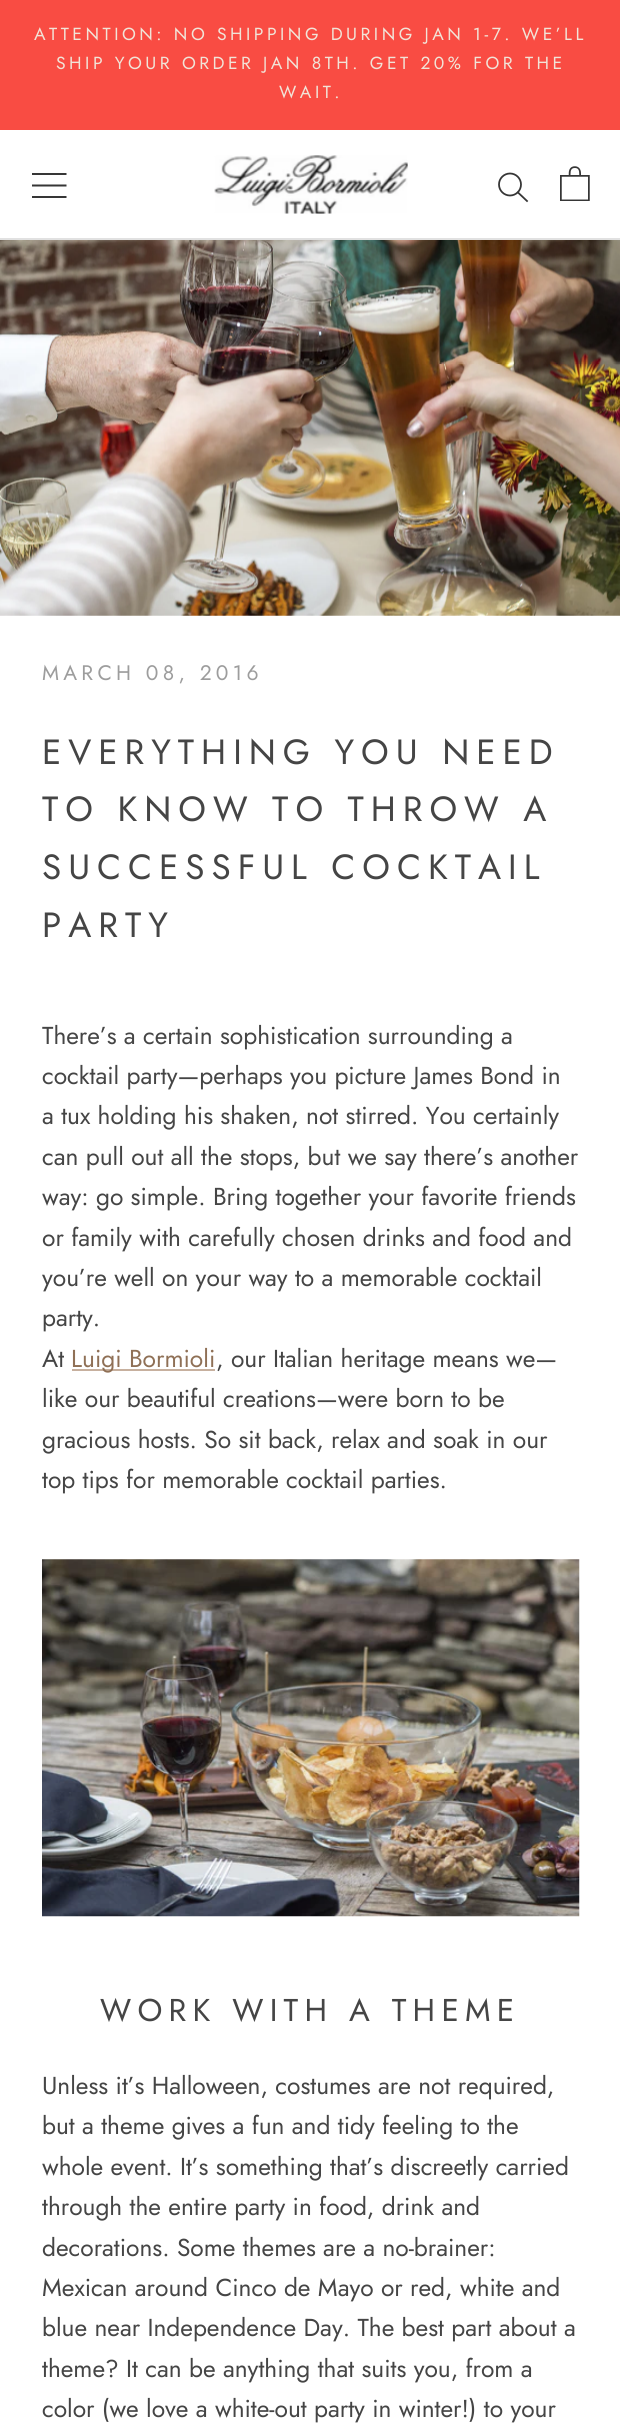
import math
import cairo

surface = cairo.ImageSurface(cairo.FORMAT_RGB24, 620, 2434)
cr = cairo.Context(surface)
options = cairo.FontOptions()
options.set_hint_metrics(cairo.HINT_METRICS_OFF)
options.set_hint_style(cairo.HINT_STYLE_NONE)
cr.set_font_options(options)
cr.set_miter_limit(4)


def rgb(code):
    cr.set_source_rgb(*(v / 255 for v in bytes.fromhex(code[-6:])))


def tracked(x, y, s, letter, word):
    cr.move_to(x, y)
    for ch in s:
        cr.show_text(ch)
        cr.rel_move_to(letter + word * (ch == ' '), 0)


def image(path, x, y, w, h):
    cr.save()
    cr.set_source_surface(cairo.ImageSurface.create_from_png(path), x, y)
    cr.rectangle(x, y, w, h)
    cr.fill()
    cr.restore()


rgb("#ffffff")
cr.paint()
rgb("#f94c43")
cr.rectangle(0, 0, 620, 130)
cr.fill()
rgb("#e1e1e1")
cr.rectangle(0, 238, 620, 2)
cr.fill()
cr.save()
cr.rectangle(32, 173, 35, 25)
cr.clip()
rgb("#363636")
cr.new_path()
cr.move_to(31.5, 198)
cr.line_to(31.5, 196)
cr.line_to(66.5, 196)
cr.line_to(66.5, 198)
cr.close_path()
cr.move_to(31.5, 184.5)
cr.line_to(66.5, 184.5)
cr.line_to(66.5, 186.5)
cr.line_to(31.5, 186.5)
cr.close_path()
cr.move_to(31.5, 173)
cr.line_to(66.5, 173)
cr.line_to(66.5, 175)
cr.line_to(31.5, 175)
cr.close_path()
cr.fill()
cr.restore()
image("img/1.png", 214, 155, 194, 59)
cr.new_path()
cr.move_to(527, 201)
cr.line_to(518, 192.5)
rgb("#363636")
cr.set_line_width(1.8)
cr.set_line_cap(cairo.LINE_CAP_SQUARE)
cr.stroke()
cr.arc(510, 184.5, 11, 0, 2 * math.pi)
cr.set_line_cap(cairo.LINE_CAP_BUTT)
cr.stroke()
image("img/2.png", 560, 166, 30, 35)
image("img/3.png", 0, 240, 620, 376)
rgb("#c7b09e")
cr.rectangle(72, 1369, 143, 2)
cr.fill()
image("img/4.png", 42, 1559, 538, 358)
cr.select_font_face("Jost")
cr.set_font_size(17.5)
rgb("#f1e4d8")
for x, y, s in [
    (34, 40, "ATTENTION: NO SHIPPING DURING JAN 1-7. WE’LL"),
    (56, 69, "SHIP YOUR ORDER JAN 8TH. GET 20% FOR THE"),
    (279, 98, "WAIT."),
]:
    tracked(x, y, s, 3.5, 0)
cr.set_font_size(21)
rgb("#9d9d9d")
tracked(42, 680, "MARCH 08, 2016", 4.25, 0)
cr.set_font_size(35)
rgb("#454545")
for x, y, s in [
    (42, 764, "EVERYTHING YOU NEED"),
    (42, 821, "TO KNOW TO THROW A"),
    (42, 879, "SUCCESSFUL COCKTAIL"),
    (42, 937, "PARTY"),
]:
    tracked(x, y, s, 7, 0)
cr.set_font_size(24.5)
for x, y, s in [
    (42, 1044, "There’s a certain sophistication surrounding a"),
    (42, 1084, "cocktail party—perhaps you picture James Bond in"),
    (42, 1124, "a tux holding his shaken, not stirred. You certainly"),
    (42, 1165, "can pull out all the stops, but we say there’s another"),
    (42, 1205, "way: go simple. Bring together your favorite friends"),
    (42, 1246, "or family with carefully chosen drinks and food and"),
    (42, 1286, "you’re well on your way to a memorable cocktail"),
    (42, 1326, "party."),
    (42, 1367, "At"),
]:
    cr.move_to(x, y)
    cr.show_text(s)
rgb("#8f7056")
cr.move_to(71, 1367)
cr.show_text("Luigi Bormioli")
rgb("#454545")
for x, y, s in [
    (216, 1367, ", our Italian heritage means we—"),
    (42, 1407, "like our beautiful creations—were born to be"),
    (42, 1448, "gracious hosts. So sit back, relax and soak in our"),
    (42, 1488, "top tips for memorable cocktail parties."),
]:
    cr.move_to(x, y)
    cr.show_text(s)
cr.set_font_size(31.5)
tracked(100, 2021, "WORK WITH A THEME", 6.25, 0)
cr.set_font_size(24.5)
for x, y, s in [
    (42, 2094, "Unless it’s Halloween, costumes are not required,"),
    (42, 2134, "but a theme gives a fun and tidy feeling to the"),
    (42, 2175, "whole event. It’s something that’s discreetly carried"),
    (42, 2215, "through the entire party in food, drink and"),
    (42, 2256, "decorations. Some themes are a no-brainer:"),
    (42, 2296, "Mexican around Cinco de Mayo or red, white and"),
    (42, 2336, "blue near Independence Day. The best part about a"),
    (42, 2377, "theme? It can be anything that suits you, from a"),
    (42, 2417, "color (we love a white-out party in winter!) to your"),
]:
    cr.move_to(x, y)
    cr.show_text(s)
surface.write_to_png("page.png")
